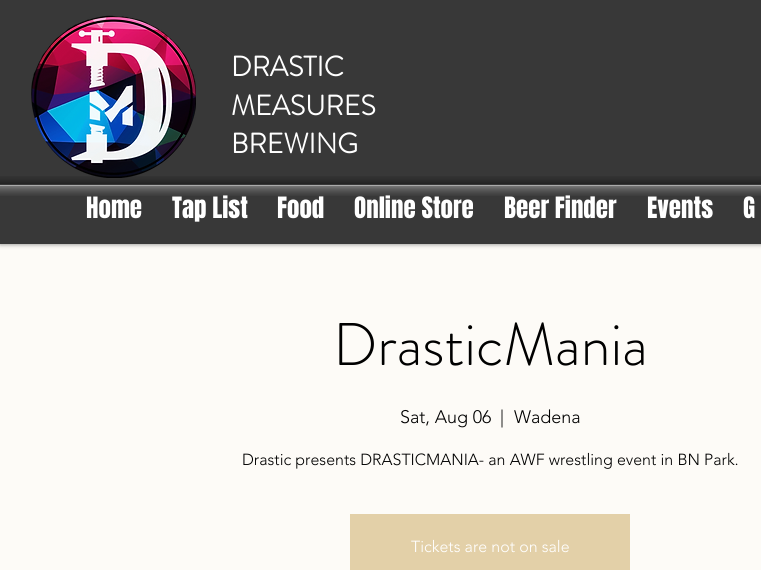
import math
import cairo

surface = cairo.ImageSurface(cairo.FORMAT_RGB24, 761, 570)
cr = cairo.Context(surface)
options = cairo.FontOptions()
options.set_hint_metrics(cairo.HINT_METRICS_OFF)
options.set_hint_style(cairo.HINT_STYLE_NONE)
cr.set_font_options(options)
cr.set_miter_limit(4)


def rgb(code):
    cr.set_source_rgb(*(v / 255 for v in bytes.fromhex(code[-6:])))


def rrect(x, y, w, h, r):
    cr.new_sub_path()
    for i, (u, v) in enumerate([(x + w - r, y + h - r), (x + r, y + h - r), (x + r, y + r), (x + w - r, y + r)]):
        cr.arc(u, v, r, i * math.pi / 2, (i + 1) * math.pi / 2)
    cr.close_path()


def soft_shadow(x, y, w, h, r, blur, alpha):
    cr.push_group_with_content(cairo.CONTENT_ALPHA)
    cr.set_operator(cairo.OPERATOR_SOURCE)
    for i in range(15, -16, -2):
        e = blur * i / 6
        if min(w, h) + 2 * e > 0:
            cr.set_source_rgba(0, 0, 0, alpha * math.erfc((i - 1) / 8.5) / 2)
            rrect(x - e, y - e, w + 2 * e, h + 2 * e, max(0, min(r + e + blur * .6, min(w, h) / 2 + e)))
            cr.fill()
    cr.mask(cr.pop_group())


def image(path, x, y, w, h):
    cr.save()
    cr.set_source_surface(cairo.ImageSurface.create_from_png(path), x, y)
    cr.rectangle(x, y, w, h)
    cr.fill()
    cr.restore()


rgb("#fdfbf7")
cr.paint()
rgb("#000000")
soft_shadow(0, 0, 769, 244, 0, 2.5, 0.5)
rgb("#383838")
cr.rectangle(0, 0, 761, 244)
cr.fill()
image("img/1.png", 31, 15, 165, 163)
rgb("#e3d0a8")
cr.rectangle(350, 514, 280, 56)
cr.fill()
cr.select_font_face("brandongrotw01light", cairo.FONT_SLANT_NORMAL, cairo.FONT_WEIGHT_BOLD)
cr.set_font_size(28)
rgb("#ffffff")
for x, y, s in [
    (231, 76, "DRASTIC"),
    (231, 115, "MEASURES"),
    (231, 153, "BREWING"),
]:
    cr.move_to(x, y)
    cr.show_text(s)
cr.select_font_face("Anton")
cr.set_font_size(25)
for x, y, s in [
    (86, 218, "Home"),
    (172, 218, "Tap List"),
    (277, 218, "Food"),
    (354, 218, "Online Store"),
    (504, 218, "Beer Finder"),
]:
    cr.move_to(x, y)
    cr.show_text(s)
image("img/2.png", 0, 176, 761, 20)
cr.move_to(647, 218)
cr.show_text("Events")
cr.move_to(743, 218)
cr.show_text("G")
cr.select_font_face("brandongrotw01light Light")
cr.set_font_size(60)
rgb("#000000")
cr.move_to(333, 365)
cr.show_text("DrasticMania")
cr.select_font_face("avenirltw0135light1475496 Light")
cr.set_font_size(18)
for x, y, s in [
    (400, 423, "Sat, Aug 06"),
    (500, 423, "|"),
    (514, 423, "Wadena"),
]:
    cr.move_to(x, y)
    cr.show_text(s)
cr.set_font_size(16)
cr.move_to(242, 465)
cr.show_text("Drastic presents DRASTICMANIA- an AWF wrestling event in BN Park.")
rgb("#ffffff")
cr.move_to(411, 552)
cr.show_text("Tickets are not on sale")
surface.write_to_png("page.png")
